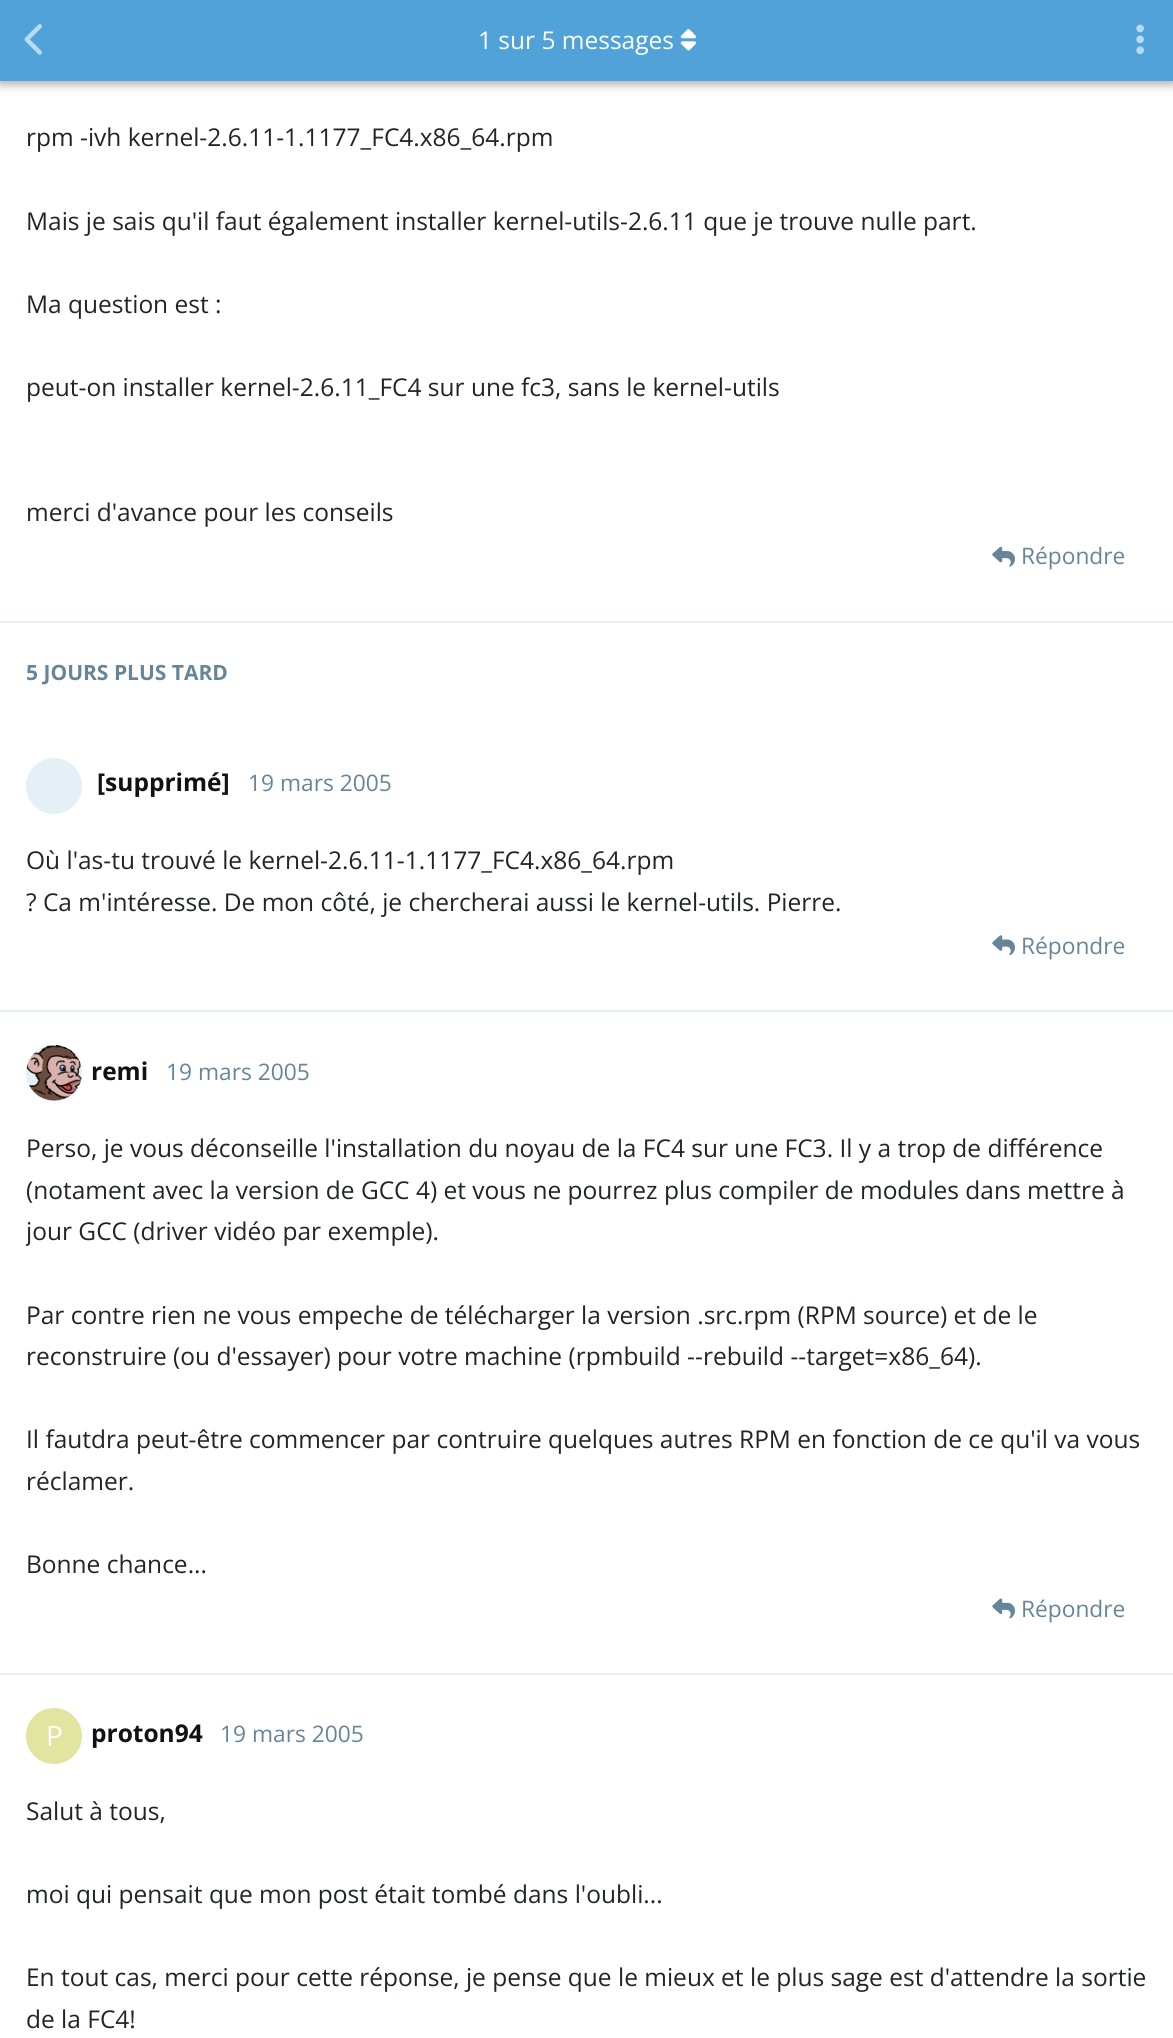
import math
import cairo

surface = cairo.ImageSurface(cairo.FORMAT_RGB24, 1173, 2038)
cr = cairo.Context(surface)
options = cairo.FontOptions()
options.set_hint_metrics(cairo.HINT_METRICS_OFF)
options.set_hint_style(cairo.HINT_STYLE_NONE)
cr.set_font_options(options)
cr.set_miter_limit(4)


def rgb(code):
    cr.set_source_rgb(*(v / 255 for v in bytes.fromhex(code[-6:])))


def rrect(x, y, w, h, r):
    cr.new_sub_path()
    for i, (u, v) in enumerate([(x + w - r, y + h - r), (x + r, y + h - r), (x + r, y + r), (x + w - r, y + r)]):
        cr.arc(u, v, r, i * math.pi / 2, (i + 1) * math.pi / 2)
    cr.close_path()


def soft_shadow(x, y, w, h, r, blur, alpha):
    cr.push_group_with_content(cairo.CONTENT_ALPHA)
    cr.set_operator(cairo.OPERATOR_SOURCE)
    for i in range(15, -16, -2):
        e = blur * i / 6
        if min(w, h) + 2 * e > 0:
            cr.set_source_rgba(0, 0, 0, alpha * math.erfc((i - 1) / 8.5) / 2)
            rrect(x - e, y - e, w + 2 * e, h + 2 * e, max(0, min(r + e + blur * .6, min(w, h) / 2 + e)))
            cr.fill()
    cr.mask(cr.pop_group())


def image(path, x, y, w, h):
    cr.save()
    cr.set_source_surface(cairo.ImageSurface.create_from_png(path), x, y)
    cr.rectangle(x, y, w, h)
    cr.fill()
    cr.restore()


rgb("#ffffff")
cr.paint()
rgb("#000000")
soft_shadow(0, 4, 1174, 80, 0, 5, 0.35)
rgb("#51a2d9")
cr.rectangle(0, 0, 1173, 81)
cr.fill()
image("img/1.png", 24, 24, 18, 31)
image("img/2.png", 680, 29, 16, 22)
image("img/3.png", 1136, 24, 8, 31)
rgb("#e4eff6")
cr.rectangle(0, 621, 1173, 2)
cr.fill()
image("img/4.png", 992, 546, 23, 21)
cr.rectangle(0, 1010, 1173, 2)
cr.fill()
cr.arc(54, 786, 28, 0, 2 * math.pi)
cr.fill()
image("img/5.png", 992, 935, 23, 21)
cr.rectangle(0, 1673, 1173, 2)
cr.fill()
cr.arc(54, 1073, 28, 0, 2 * math.pi)
cr.fill()
image("img/6.png", 26, 1045, 56, 56)
image("img/7.png", 992, 1598, 23, 21)
rgb("#e2e5a0")
cr.arc(54, 1736, 28, 0, 2 * math.pi)
cr.fill()
cr.select_font_face("Open Sans")
cr.set_font_size(24.5)
rgb("#ffffff")
cr.move_to(478, 49)
cr.show_text("1 sur 5 messages")
rgb("#212529")
for x, y, s in [
    (26, 146, "rpm -ivh kernel-2.6.11-1.1177_FC4.x86_64.rpm"),
    (26, 230, "Mais je sais qu'il faut également installer kernel-utils-2.6.11 que je trouve nulle part."),
    (26, 313, "Ma question est :"),
    (26, 396, "peut-on installer kernel-2.6.11_FC4 sur une fc3, sans le kernel-utils"),
    (26, 521, "merci d'avance pour les conseils"),
]:
    cr.move_to(x, y)
    cr.show_text(s)
cr.set_font_size(22.75)
rgb("#668599")
cr.move_to(1021, 564)
cr.show_text("Répondre")
cr.select_font_face("Open Sans", cairo.FONT_SLANT_NORMAL, cairo.FONT_WEIGHT_BOLD)
cr.set_font_size(21)
cr.move_to(26, 680)
cr.show_text("5 JOURS PLUS TARD")
cr.set_font_size(24.5)
rgb("#111111")
cr.move_to(97, 791)
cr.show_text("[supprimé]")
cr.select_font_face("Open Sans")
cr.set_font_size(22.75)
rgb("#668599")
cr.move_to(248, 791)
cr.show_text("19 mars 2005")
cr.set_font_size(24.5)
rgb("#212529")
cr.move_to(26, 869)
cr.show_text("Où l'as-tu trouvé le kernel-2.6.11-1.1177_FC4.x86_64.rpm")
cr.move_to(26, 911)
cr.show_text("? Ca m'intéresse. De mon côté, je chercherai aussi le kernel-utils. Pierre.")
cr.set_font_size(22.75)
rgb("#668599")
cr.move_to(1021, 954)
cr.show_text("Répondre")
cr.select_font_face("Open Sans", cairo.FONT_SLANT_NORMAL, cairo.FONT_WEIGHT_BOLD)
cr.set_font_size(24.5)
rgb("#111111")
cr.move_to(91, 1080)
cr.show_text("remi")
cr.select_font_face("Open Sans")
cr.set_font_size(22.75)
rgb("#668599")
cr.move_to(166, 1080)
cr.show_text("19 mars 2005")
cr.set_font_size(24.5)
rgb("#212529")
cr.move_to(26, 1157)
cr.show_text("Perso, je vous déconseille l'installation du noyau de la FC4 sur une FC3. Il y a trop de différence")
cr.move_to(26, 1199)
cr.show_text("(notament avec la version de GCC 4) et vous ne pourrez plus compiler de modules dans mettre à")
cr.save()
cr.rectangle(26, 1127, 1122, 459)
cr.clip()
cr.move_to(26, 1240)
cr.show_text("jour GCC (driver vidéo par exemple).")
cr.restore()
for x, y, s in [
    (26, 1324, "Par contre rien ne vous empeche de télécharger la version .src.rpm (RPM source) et de le"),
    (26, 1365, "reconstruire (ou d'essayer) pour votre machine (rpmbuild --rebuild --target=x86_64)."),
    (26, 1448, "Il fautdra peut-être commencer par contruire quelques autres RPM en fonction de ce qu'il va vous"),
    (26, 1490, "réclamer."),
    (26, 1573, "Bonne chance..."),
]:
    cr.move_to(x, y)
    cr.show_text(s)
cr.set_font_size(22.75)
rgb("#668599")
cr.move_to(1021, 1617)
cr.show_text("Répondre")
cr.set_font_size(28)
rgb("#ffffff")
cr.move_to(46, 1746)
cr.show_text("P")
cr.select_font_face("Open Sans", cairo.FONT_SLANT_NORMAL, cairo.FONT_WEIGHT_BOLD)
cr.set_font_size(24.5)
rgb("#111111")
cr.move_to(91, 1742)
cr.show_text("proton94")
cr.select_font_face("Open Sans")
cr.set_font_size(22.75)
rgb("#668599")
cr.move_to(220, 1742)
cr.show_text("19 mars 2005")
cr.set_font_size(24.5)
rgb("#212529")
for x, y, s in [
    (26, 1820, "Salut à tous,"),
    (26, 1903, "moi qui pensait que mon post était tombé dans l'oubli..."),
    (26, 1986, "En tout cas, merci pour cette réponse, je pense que le mieux et le plus sage est d'attendre la sortie"),
    (26, 2028, "de la FC4!"),
]:
    cr.move_to(x, y)
    cr.show_text(s)
surface.write_to_png("page.png")
